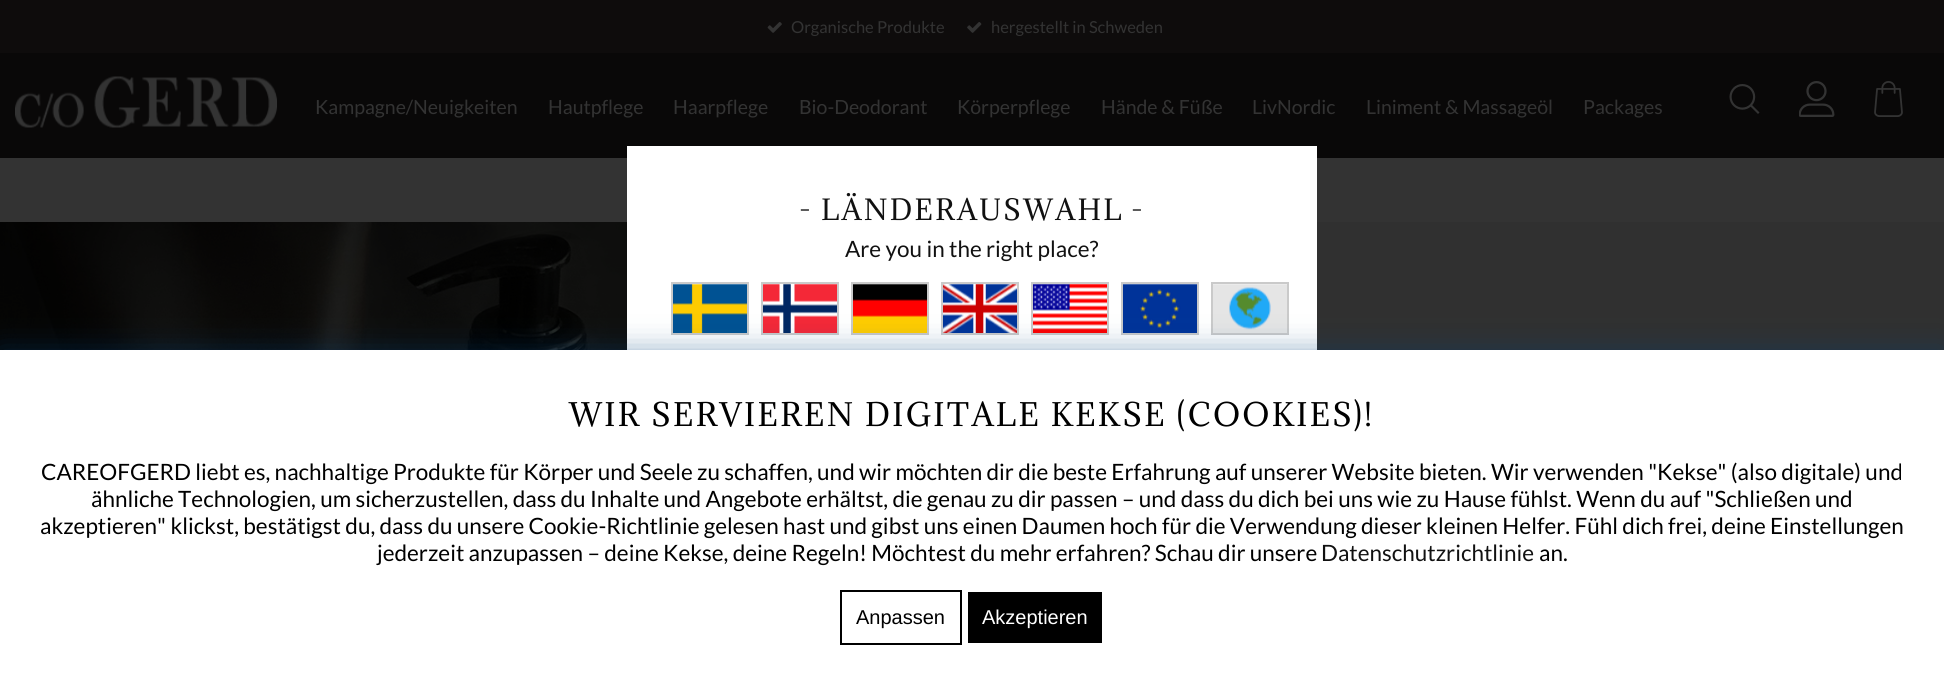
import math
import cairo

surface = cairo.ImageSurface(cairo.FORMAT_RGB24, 1944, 674)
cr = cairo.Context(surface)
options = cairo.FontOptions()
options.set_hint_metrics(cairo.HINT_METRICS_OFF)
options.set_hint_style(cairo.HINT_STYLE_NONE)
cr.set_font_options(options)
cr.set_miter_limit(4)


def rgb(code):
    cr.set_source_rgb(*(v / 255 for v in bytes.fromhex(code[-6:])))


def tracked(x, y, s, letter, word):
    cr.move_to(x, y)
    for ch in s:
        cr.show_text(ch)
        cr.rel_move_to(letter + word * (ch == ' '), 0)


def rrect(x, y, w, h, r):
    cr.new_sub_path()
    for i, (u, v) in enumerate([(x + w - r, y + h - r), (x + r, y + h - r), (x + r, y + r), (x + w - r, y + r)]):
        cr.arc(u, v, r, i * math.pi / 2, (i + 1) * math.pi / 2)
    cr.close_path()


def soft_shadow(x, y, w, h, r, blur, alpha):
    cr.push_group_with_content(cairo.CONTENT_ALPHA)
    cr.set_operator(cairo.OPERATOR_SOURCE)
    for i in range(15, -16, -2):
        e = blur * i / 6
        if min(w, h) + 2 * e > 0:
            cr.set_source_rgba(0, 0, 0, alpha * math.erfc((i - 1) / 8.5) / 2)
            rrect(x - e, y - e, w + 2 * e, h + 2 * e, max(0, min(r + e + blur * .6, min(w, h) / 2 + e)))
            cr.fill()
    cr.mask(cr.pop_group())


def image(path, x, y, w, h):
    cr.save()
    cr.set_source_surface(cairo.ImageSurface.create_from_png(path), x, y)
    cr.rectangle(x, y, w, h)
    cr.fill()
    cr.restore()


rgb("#333333")
cr.paint()
rgb("#0e0c0c")
cr.rectangle(0, 0, 1944, 53)
cr.fill()
image("img/1.png", 767, 22, 15, 11)
image("img/2.png", 967, 22, 15, 11)
rgb("#090808")
cr.rectangle(0, 53, 1944, 105)
cr.fill()
image("img/3.png", 15, 76, 263, 52)
image("img/4.png", 1729, 84, 31, 30)
image("img/5.png", 1799, 81, 36, 36)
image("img/6.png", 1874, 81, 29, 36)
rgb("#ffffff")
cr.rectangle(627, 146, 690, 204)
cr.fill()
image("img/7.png", 673, 284, 74, 49)
cr.rectangle(672, 283, 76, 51)
rgb("#cacaca")
cr.stroke()
image("img/8.png", 763, 284, 74, 49)
cr.rectangle(762, 283, 76, 51)
cr.stroke()
image("img/9.png", 853, 284, 74, 49)
cr.rectangle(852, 283, 76, 51)
cr.stroke()
image("img/10.png", 943, 284, 74, 49)
cr.rectangle(942, 283, 76, 51)
cr.stroke()
image("img/11.png", 1033, 284, 74, 49)
cr.rectangle(1032, 283, 76, 51)
cr.stroke()
image("img/12.png", 1123, 284, 74, 49)
cr.rectangle(1122, 283, 76, 51)
cr.stroke()
image("img/13.png", 1213, 284, 74, 49)
cr.rectangle(1212, 283, 76, 51)
cr.stroke()
image("img/14.png", 0, 222, 627, 128)
rgb("#303030")
cr.rectangle(1317, 222, 627, 128)
cr.fill()
rgb("#00427a")
soft_shadow(0, 351, 1944, 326, 0, 15, 0.44)
rgb("#ffffff")
cr.rectangle(0, 350, 1944, 324)
cr.fill()
cr.rectangle(841, 591, 120, 53)
rgb("#000000")
cr.stroke()
cr.rectangle(968, 592, 134, 51)
cr.fill()
cr.select_font_face("Lato")
cr.set_font_size(16.5)
rgb("#333333")
cr.move_to(791, 33)
cr.show_text("Organische Produkte")
cr.move_to(991, 33)
cr.show_text("hergestellt in Schweden")
cr.set_font_size(19.5)
for x, y, s in [
    (315, 114, "Kampagne/Neuigkeiten"),
    (548, 114, "Hautpflege"),
    (673, 114, "Haarpflege"),
    (799, 114, "Bio-Deodorant"),
    (957, 114, "Körperpflege"),
    (1101, 114, "Hände & Füße"),
    (1252, 114, "LivNordic"),
    (1366, 114, "Liniment & Massageöl"),
    (1583, 114, "Packages"),
]:
    cr.move_to(x, y)
    cr.show_text(s)
cr.select_font_face("Adamina")
cr.set_font_size(27)
rgb("#111111")
for x, y, s in [
    (799, 220, "-"),
    (821, 220, "LÄNDERAUSWAHL"),
    (1131, 220, "-"),
]:
    tracked(x, y, s, 2.25, 0)
cr.select_font_face("Lato")
cr.set_font_size(22.5)
cr.move_to(845, 257)
cr.show_text("Are you in the right place?")
cr.select_font_face("Adamina")
cr.set_font_size(30)
rgb("#000000")
tracked(569, 426, "WIR SERVIEREN DIGITALE KEKSE (COOKIES)!", 2.25, 0)
cr.select_font_face("Lato")
cr.set_font_size(22.5)
for x, y, s in [
    (41, 480, "CAREOFGERD liebt es, nachhaltige Produkte für Körper und Seele zu schaffen, und wir möchten dir die beste Erfahrung auf unserer Website bieten. Wir verwenden \"Kekse\" (also digitale) und"),
    (91, 507, "ähnliche Technologien, um sicherzustellen, dass du Inhalte und Angebote erhältst, die genau zu dir passen – und dass du dich bei uns wie zu Hause fühlst. Wenn du auf \"Schließen und"),
    (40, 534, "akzeptieren\" klickst, bestätigst du, dass du unsere Cookie-Richtlinie gelesen hast und gibst uns einen Daumen hoch für die Verwendung dieser kleinen Helfer. Fühl dich frei, deine Einstellungen"),
    (377, 561, "jederzeit anzupassen – deine Kekse, deine Regeln! Möchtest du mehr erfahren? Schau dir unsere"),
]:
    cr.move_to(x, y)
    cr.show_text(s)
rgb("#111111")
cr.move_to(1321, 561)
cr.show_text("Datenschutzrichtlinie")
rgb("#000000")
cr.move_to(1539, 561)
cr.show_text("an.")
cr.select_font_face("Liberation Sans")
cr.set_font_size(20)
cr.move_to(856, 624)
cr.show_text("Anpassen")
rgb("#ffffff")
cr.move_to(982, 624)
cr.show_text("Akzeptieren")
surface.write_to_png("page.png")
